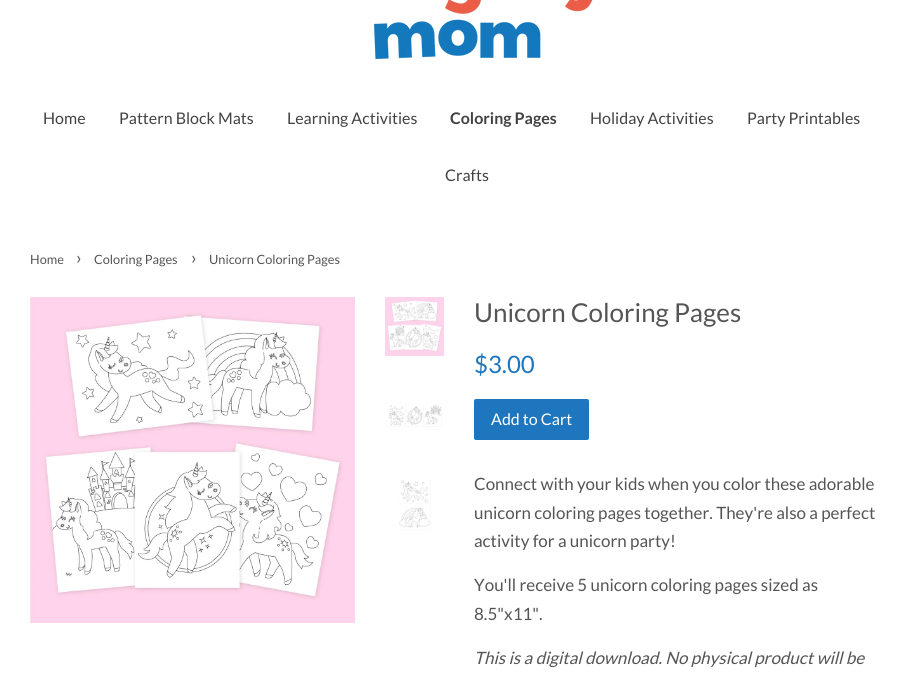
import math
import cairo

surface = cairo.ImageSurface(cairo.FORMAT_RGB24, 918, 680)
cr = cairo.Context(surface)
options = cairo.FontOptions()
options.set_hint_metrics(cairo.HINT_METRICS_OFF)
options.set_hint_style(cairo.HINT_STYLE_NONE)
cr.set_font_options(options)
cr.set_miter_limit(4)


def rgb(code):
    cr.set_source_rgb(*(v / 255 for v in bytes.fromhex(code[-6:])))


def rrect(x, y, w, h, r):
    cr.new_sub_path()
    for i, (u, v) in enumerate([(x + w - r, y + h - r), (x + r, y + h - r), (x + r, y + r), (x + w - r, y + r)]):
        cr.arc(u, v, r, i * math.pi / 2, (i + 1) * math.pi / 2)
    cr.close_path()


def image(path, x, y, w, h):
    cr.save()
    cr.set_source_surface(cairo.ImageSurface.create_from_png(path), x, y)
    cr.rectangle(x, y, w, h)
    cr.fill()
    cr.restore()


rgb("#ffffff")
cr.paint()
image("img/1.png", 373, 0, 220, 59)
image("img/2.png", 30, 297, 325, 326)
image("img/3.png", 385, 297, 59, 59)
image("img/4.png", 388, 405, 54, 22)
image("img/5.png", 399, 480, 32, 50)
rgb("#1d76be")
rrect(474, 399, 115, 41, 2)
cr.fill()
cr.select_font_face("Lato")
cr.set_font_size(16)
rgb("#424242")
for x, y, s in [
    (43, 124, "Home"),
    (119, 124, "Pattern Block Mats"),
    (287, 124, "Learning Activities"),
]:
    cr.move_to(x, y)
    cr.show_text(s)
cr.select_font_face("Lato", cairo.FONT_SLANT_NORMAL, cairo.FONT_WEIGHT_BOLD)
cr.move_to(450, 124)
cr.show_text("Coloring Pages")
cr.select_font_face("Lato")
for x, y, s in [
    (590, 124, "Holiday Activities"),
    (747, 124, "Party Printables"),
    (445, 181, "Crafts"),
]:
    cr.move_to(x, y)
    cr.show_text(s)
cr.set_font_size(12.75)
rgb("#555555")
cr.move_to(30, 264)
cr.show_text("Home")
cr.set_font_size(18)
cr.move_to(76, 264)
cr.show_text("›")
cr.set_font_size(12.75)
cr.move_to(94, 264)
cr.show_text("Coloring Pages")
cr.set_font_size(18)
cr.move_to(191, 264)
cr.show_text("›")
cr.set_font_size(12.75)
cr.move_to(209, 264)
cr.show_text("Unicorn Coloring Pages")
cr.set_font_size(26)
cr.move_to(474, 322)
cr.show_text("Unicorn Coloring Pages")
cr.set_font_size(24)
rgb("#1d76be")
cr.move_to(474, 373)
cr.show_text("$3.00")
cr.set_font_size(16)
rgb("#ffffff")
cr.move_to(491, 425)
cr.show_text("Add to Cart")
cr.set_font_size(17)
rgb("#555555")
for x, y, s in [
    (474, 490, "Connect with your kids when you color these adorable"),
    (474, 519, "unicorn coloring pages together. They're also a perfect"),
    (474, 547, "activity for a unicorn party!"),
    (474, 591, "You'll receive 5 unicorn coloring pages sized as"),
    (474, 620, "8.5\"x11\"."),
]:
    cr.move_to(x, y)
    cr.show_text(s)
cr.select_font_face("Lato", cairo.FONT_SLANT_ITALIC)
cr.move_to(474, 664)
cr.show_text("This is a digital download. No physical product will be")
surface.write_to_png("page.png")
